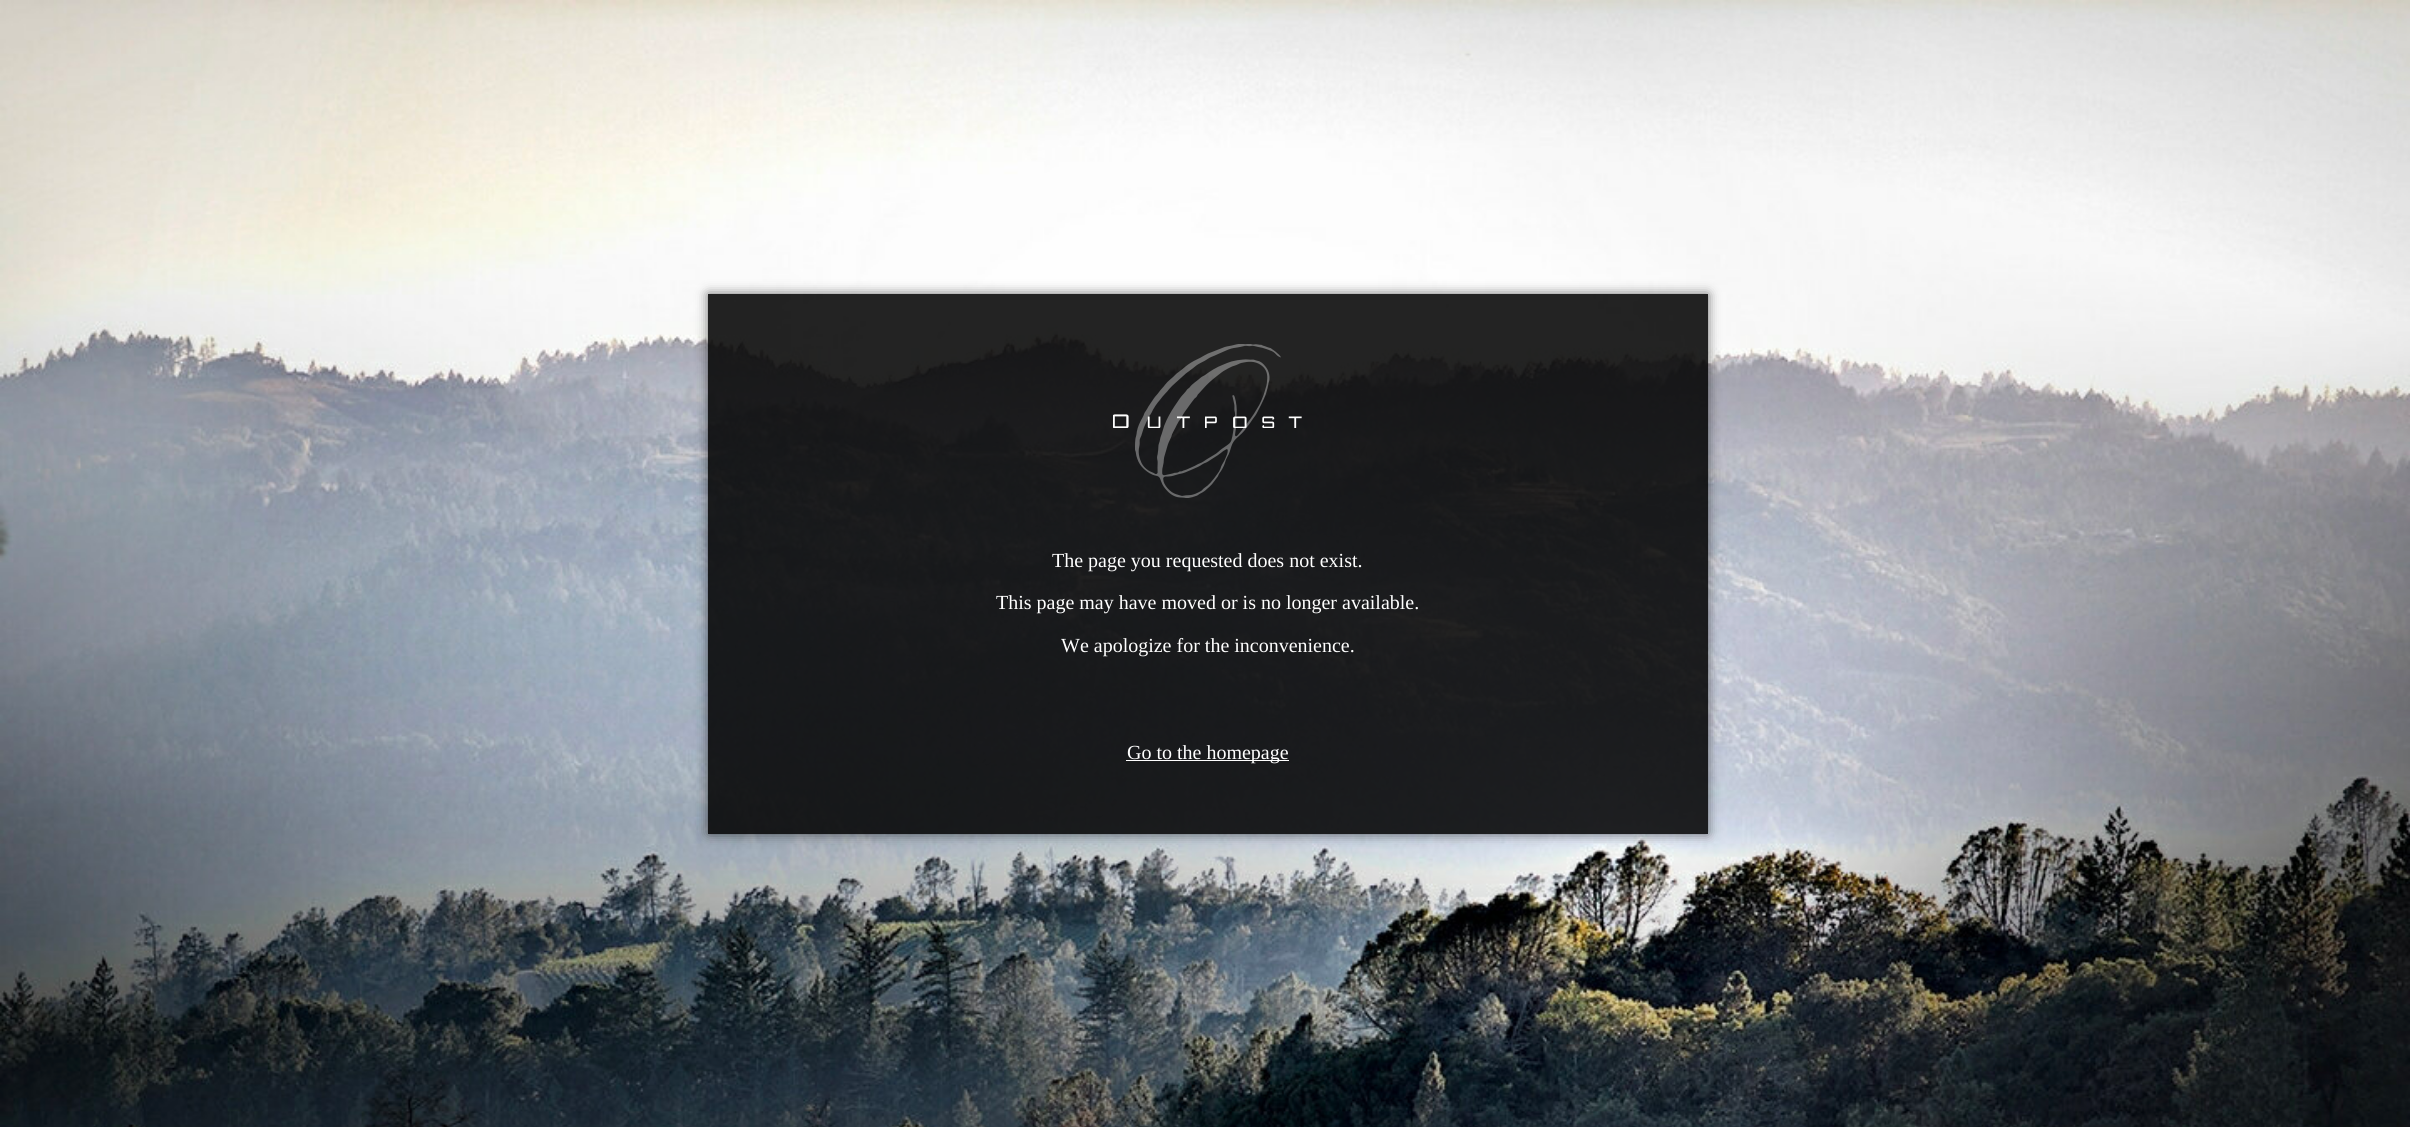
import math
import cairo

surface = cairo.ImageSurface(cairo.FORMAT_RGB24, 2410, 1127)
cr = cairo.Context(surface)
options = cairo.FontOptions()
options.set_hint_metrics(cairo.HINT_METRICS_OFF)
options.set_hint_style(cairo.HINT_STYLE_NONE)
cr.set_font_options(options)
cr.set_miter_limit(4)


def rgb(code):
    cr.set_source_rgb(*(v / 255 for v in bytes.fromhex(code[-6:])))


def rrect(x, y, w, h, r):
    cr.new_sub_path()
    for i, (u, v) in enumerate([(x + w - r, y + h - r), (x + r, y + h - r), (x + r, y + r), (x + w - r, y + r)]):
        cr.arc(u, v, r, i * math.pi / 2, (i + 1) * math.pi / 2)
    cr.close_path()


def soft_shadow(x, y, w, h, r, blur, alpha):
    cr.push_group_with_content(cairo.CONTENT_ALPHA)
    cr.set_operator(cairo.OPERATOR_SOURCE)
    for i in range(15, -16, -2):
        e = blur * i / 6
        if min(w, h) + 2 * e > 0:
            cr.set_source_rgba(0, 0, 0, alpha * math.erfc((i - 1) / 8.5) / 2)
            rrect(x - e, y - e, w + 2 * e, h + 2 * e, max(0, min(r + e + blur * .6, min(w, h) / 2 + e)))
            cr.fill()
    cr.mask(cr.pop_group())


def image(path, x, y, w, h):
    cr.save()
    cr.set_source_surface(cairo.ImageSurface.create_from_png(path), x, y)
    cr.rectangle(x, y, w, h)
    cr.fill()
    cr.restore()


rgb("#ffffff")
cr.paint()
image("img/1.png", 0, 0, 2410, 1127)
cr.save()
cr.set_fill_rule(cairo.FILL_RULE_EVEN_ODD)
cr.new_path()
cr.move_to(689, 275)
cr.line_to(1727, 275)
cr.line_to(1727, 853)
cr.line_to(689, 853)
cr.close_path()
cr.move_to(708, 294)
cr.line_to(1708, 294)
cr.line_to(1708, 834)
cr.line_to(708, 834)
cr.close_path()
cr.clip()
rgb("#000000")
soft_shadow(708, 294, 1000, 540, 0, 6, 0.55)
cr.restore()
cr.set_source_rgba(0, 0, 0, 0.86)
cr.rectangle(708, 294, 1000, 540)
cr.fill()
image("img/2.png", 1113, 344, 189, 154)
rgb("#ffffff")
cr.rectangle(1126, 760, 163, 1)
cr.fill()
cr.select_font_face("Liberation Serif")
cr.set_font_size(20)
for x, y, s in [
    (1052, 567, "The page you requested does not exist."),
    (996, 609, "This page may have moved or is no longer available."),
    (1061, 652, "We apologize for the inconvenience."),
    (1127, 759, "Go to the homepage"),
]:
    cr.move_to(x, y)
    cr.show_text(s)
surface.write_to_png("page.png")
